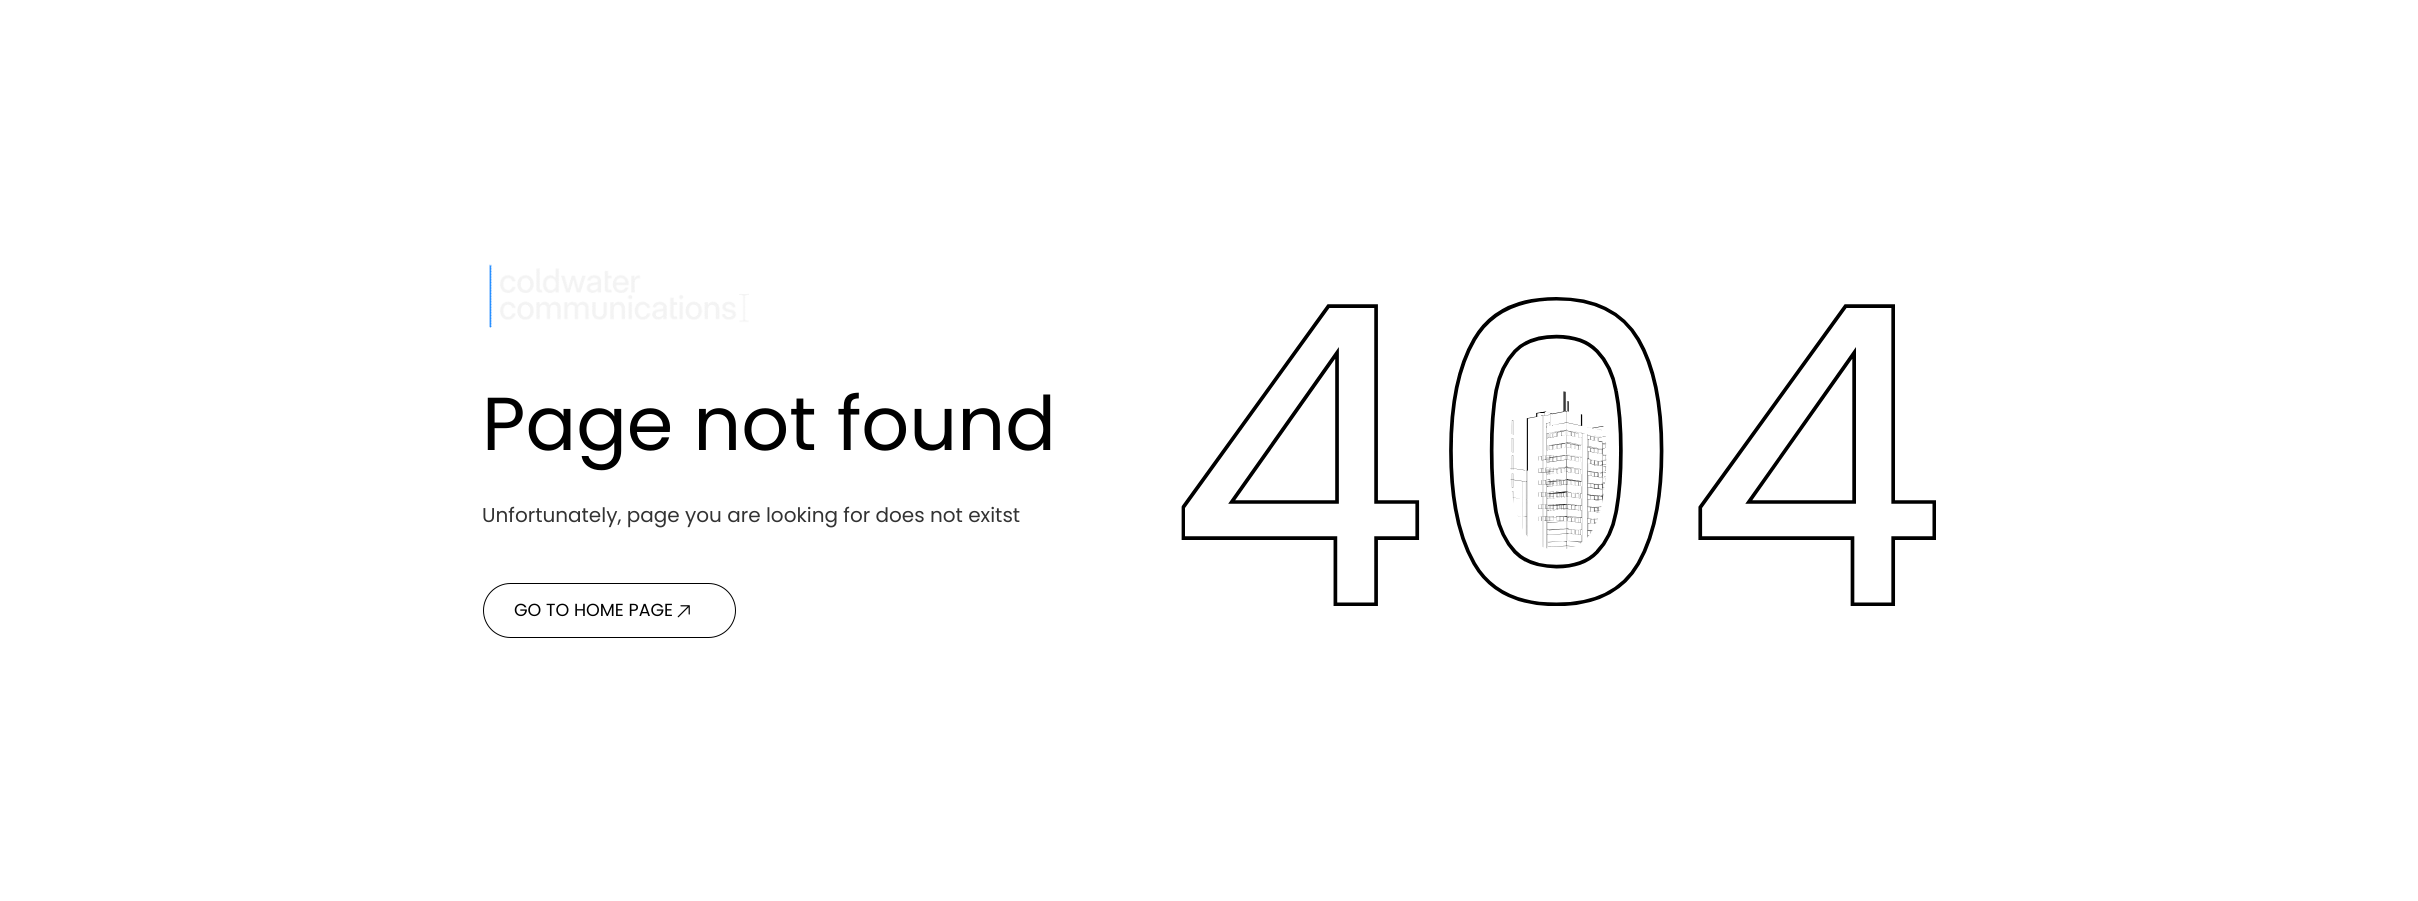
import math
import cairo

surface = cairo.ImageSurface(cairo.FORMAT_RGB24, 2418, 901)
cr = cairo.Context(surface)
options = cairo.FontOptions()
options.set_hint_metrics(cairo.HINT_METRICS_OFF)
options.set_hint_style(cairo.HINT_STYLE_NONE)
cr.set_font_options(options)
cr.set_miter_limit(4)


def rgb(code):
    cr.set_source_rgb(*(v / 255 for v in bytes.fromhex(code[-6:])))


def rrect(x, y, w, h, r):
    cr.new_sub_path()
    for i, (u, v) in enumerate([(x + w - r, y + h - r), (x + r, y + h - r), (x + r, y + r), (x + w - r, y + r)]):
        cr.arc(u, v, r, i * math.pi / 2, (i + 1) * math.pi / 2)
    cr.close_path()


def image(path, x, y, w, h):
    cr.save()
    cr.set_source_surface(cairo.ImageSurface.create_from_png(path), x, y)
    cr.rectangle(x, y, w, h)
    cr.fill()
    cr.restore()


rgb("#ffffff")
cr.paint()
image("img/1.png", 489, 264, 260, 64)
image("img/2.png", 677, 605, 13, 13)
rrect(483.5, 583.5, 252, 54, 27)
rgb("#000000")
cr.set_line_width(1)
cr.stroke()
image("img/3.png", 1181, 297, 755, 309)
cr.select_font_face("Poppins")
cr.set_font_size(75)
cr.move_to(482, 450)
cr.show_text("Page not found")
cr.set_font_size(20)
rgb("#333333")
cr.move_to(482, 522)
cr.show_text("Unfortunately, page you are looking for does not exitst")
cr.set_font_size(17.5)
rgb("#000000")
cr.move_to(514, 616)
cr.show_text("GO TO HOME PAGE")
surface.write_to_png("page.png")
